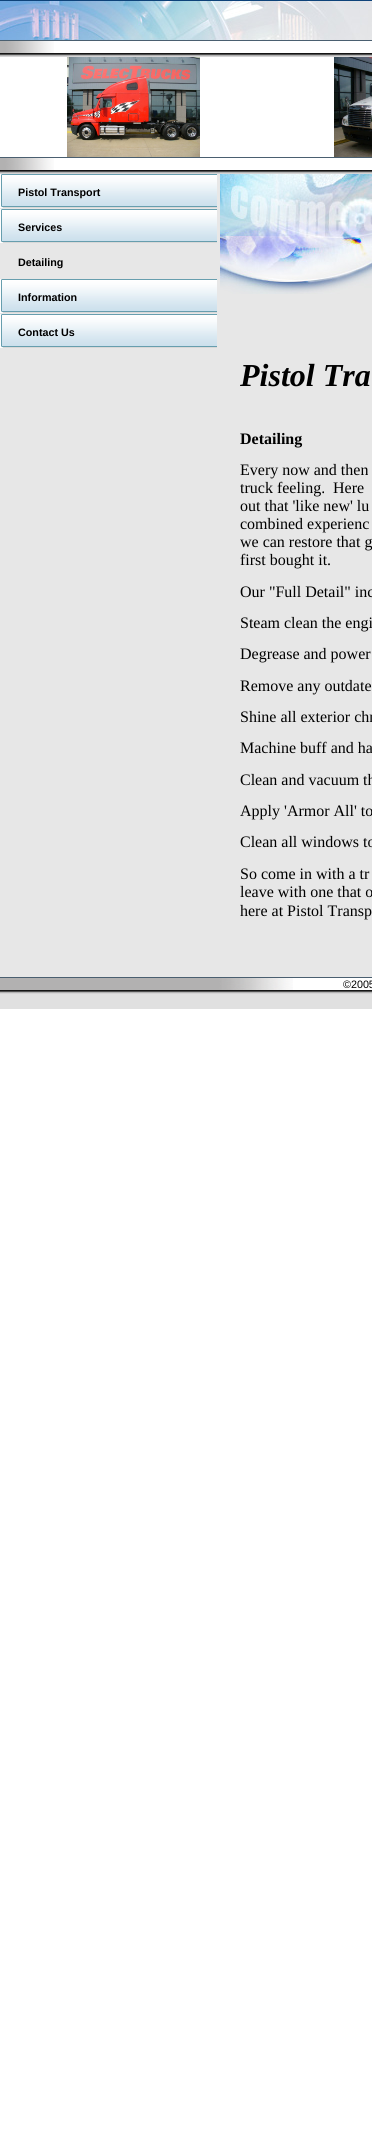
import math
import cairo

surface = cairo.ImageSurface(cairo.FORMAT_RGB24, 372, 2152)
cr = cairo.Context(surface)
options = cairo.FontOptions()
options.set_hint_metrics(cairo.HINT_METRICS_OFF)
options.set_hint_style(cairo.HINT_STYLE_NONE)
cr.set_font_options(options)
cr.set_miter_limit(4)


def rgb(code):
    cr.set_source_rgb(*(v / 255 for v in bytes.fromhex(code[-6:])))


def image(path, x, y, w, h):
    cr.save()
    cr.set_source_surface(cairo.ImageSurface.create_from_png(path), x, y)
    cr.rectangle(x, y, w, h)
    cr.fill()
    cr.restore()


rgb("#ffffff")
cr.paint()
rgb("#0e437a")
cr.rectangle(0, 0, 372, 1)
cr.fill()
image("img/1.png", 0, 1, 372, 39)
rgb("#4a5f70")
cr.rectangle(0, 40, 372, 1)
cr.fill()
image("img/2.png", 0, 41, 54, 12)
image("img/3.png", 0, 53, 372, 4)
image("img/4.png", 67, 57, 133, 100)
image("img/5.png", 334, 57, 38, 100)
cr.rectangle(0, 157, 372, 1)
cr.fill()
image("img/2.png", 0, 158, 54, 12)
image("img/3.png", 0, 170, 372, 4)
rgb("#e7e7e7")
cr.rectangle(0, 174, 372, 803)
cr.fill()
image("img/6.png", 0, 174, 3, 34)
image("img/7.png", 3, 174, 214, 34)
image("img/6.png", 0, 209, 3, 34)
image("img/7.png", 3, 209, 214, 34)
image("img/6.png", 0, 279, 3, 34)
image("img/7.png", 3, 279, 214, 34)
image("img/6.png", 0, 314, 3, 34)
image("img/7.png", 3, 314, 214, 34)
image("img/8.png", 220, 174, 152, 120)
rgb("#4a5f70")
cr.rectangle(0, 977, 372, 1)
cr.fill()
image("img/9.png", 0, 978, 293, 12)
image("img/3.png", 0, 990, 372, 4)
rgb("#e0e0e0")
cr.rectangle(0, 994, 372, 15)
cr.fill()
cr.select_font_face("Liberation Sans", cairo.FONT_SLANT_NORMAL, cairo.FONT_WEIGHT_BOLD)
cr.set_font_size(10.75)
rgb("#000000")
for x, y, s in [
    (18, 196, "Pistol Transport"),
    (18, 231, "Services"),
    (18, 266, "Detailing"),
    (18, 301, "Information"),
    (18, 336, "Contact Us"),
]:
    cr.move_to(x, y)
    cr.show_text(s)
cr.select_font_face("Liberation Serif", cairo.FONT_SLANT_ITALIC, cairo.FONT_WEIGHT_BOLD)
cr.set_font_size(32)
cr.move_to(240, 386)
cr.show_text("Pistol Tra")
cr.select_font_face("Liberation Serif", cairo.FONT_SLANT_NORMAL, cairo.FONT_WEIGHT_BOLD)
cr.set_font_size(16)
cr.move_to(240, 444)
cr.show_text("Detailing")
cr.select_font_face("Liberation Serif")
for x, y, s in [
    (240, 475, "Every now and then"),
    (240, 493, "truck feeling."),
    (333, 493, "Here"),
    (240, 511, "out that 'like new' lu"),
    (240, 529, "combined experienc"),
    (240, 547, "we can restore that g"),
    (240, 565, "first bought it."),
    (240, 597, "Our \"Full Detail\" inc"),
    (240, 628, "Steam clean the engi"),
    (240, 659, "Degrease and power"),
    (240, 691, "Remove any outdate"),
    (240, 722, "Shine all exterior chr"),
    (240, 753, "Machine buff and ha"),
    (240, 785, "Clean and vacuum th"),
    (240, 816, "Apply 'Armor All' to"),
    (240, 847, "Clean all windows to"),
    (240, 879, "So come in with a tr"),
    (240, 897, "leave with one that o"),
    (240, 916, "here at Pistol Transp"),
]:
    cr.move_to(x, y)
    cr.show_text(s)
cr.select_font_face("Liberation Sans")
cr.set_font_size(10.75)
cr.move_to(343, 988)
cr.show_text("©2005")
surface.write_to_png("page.png")
